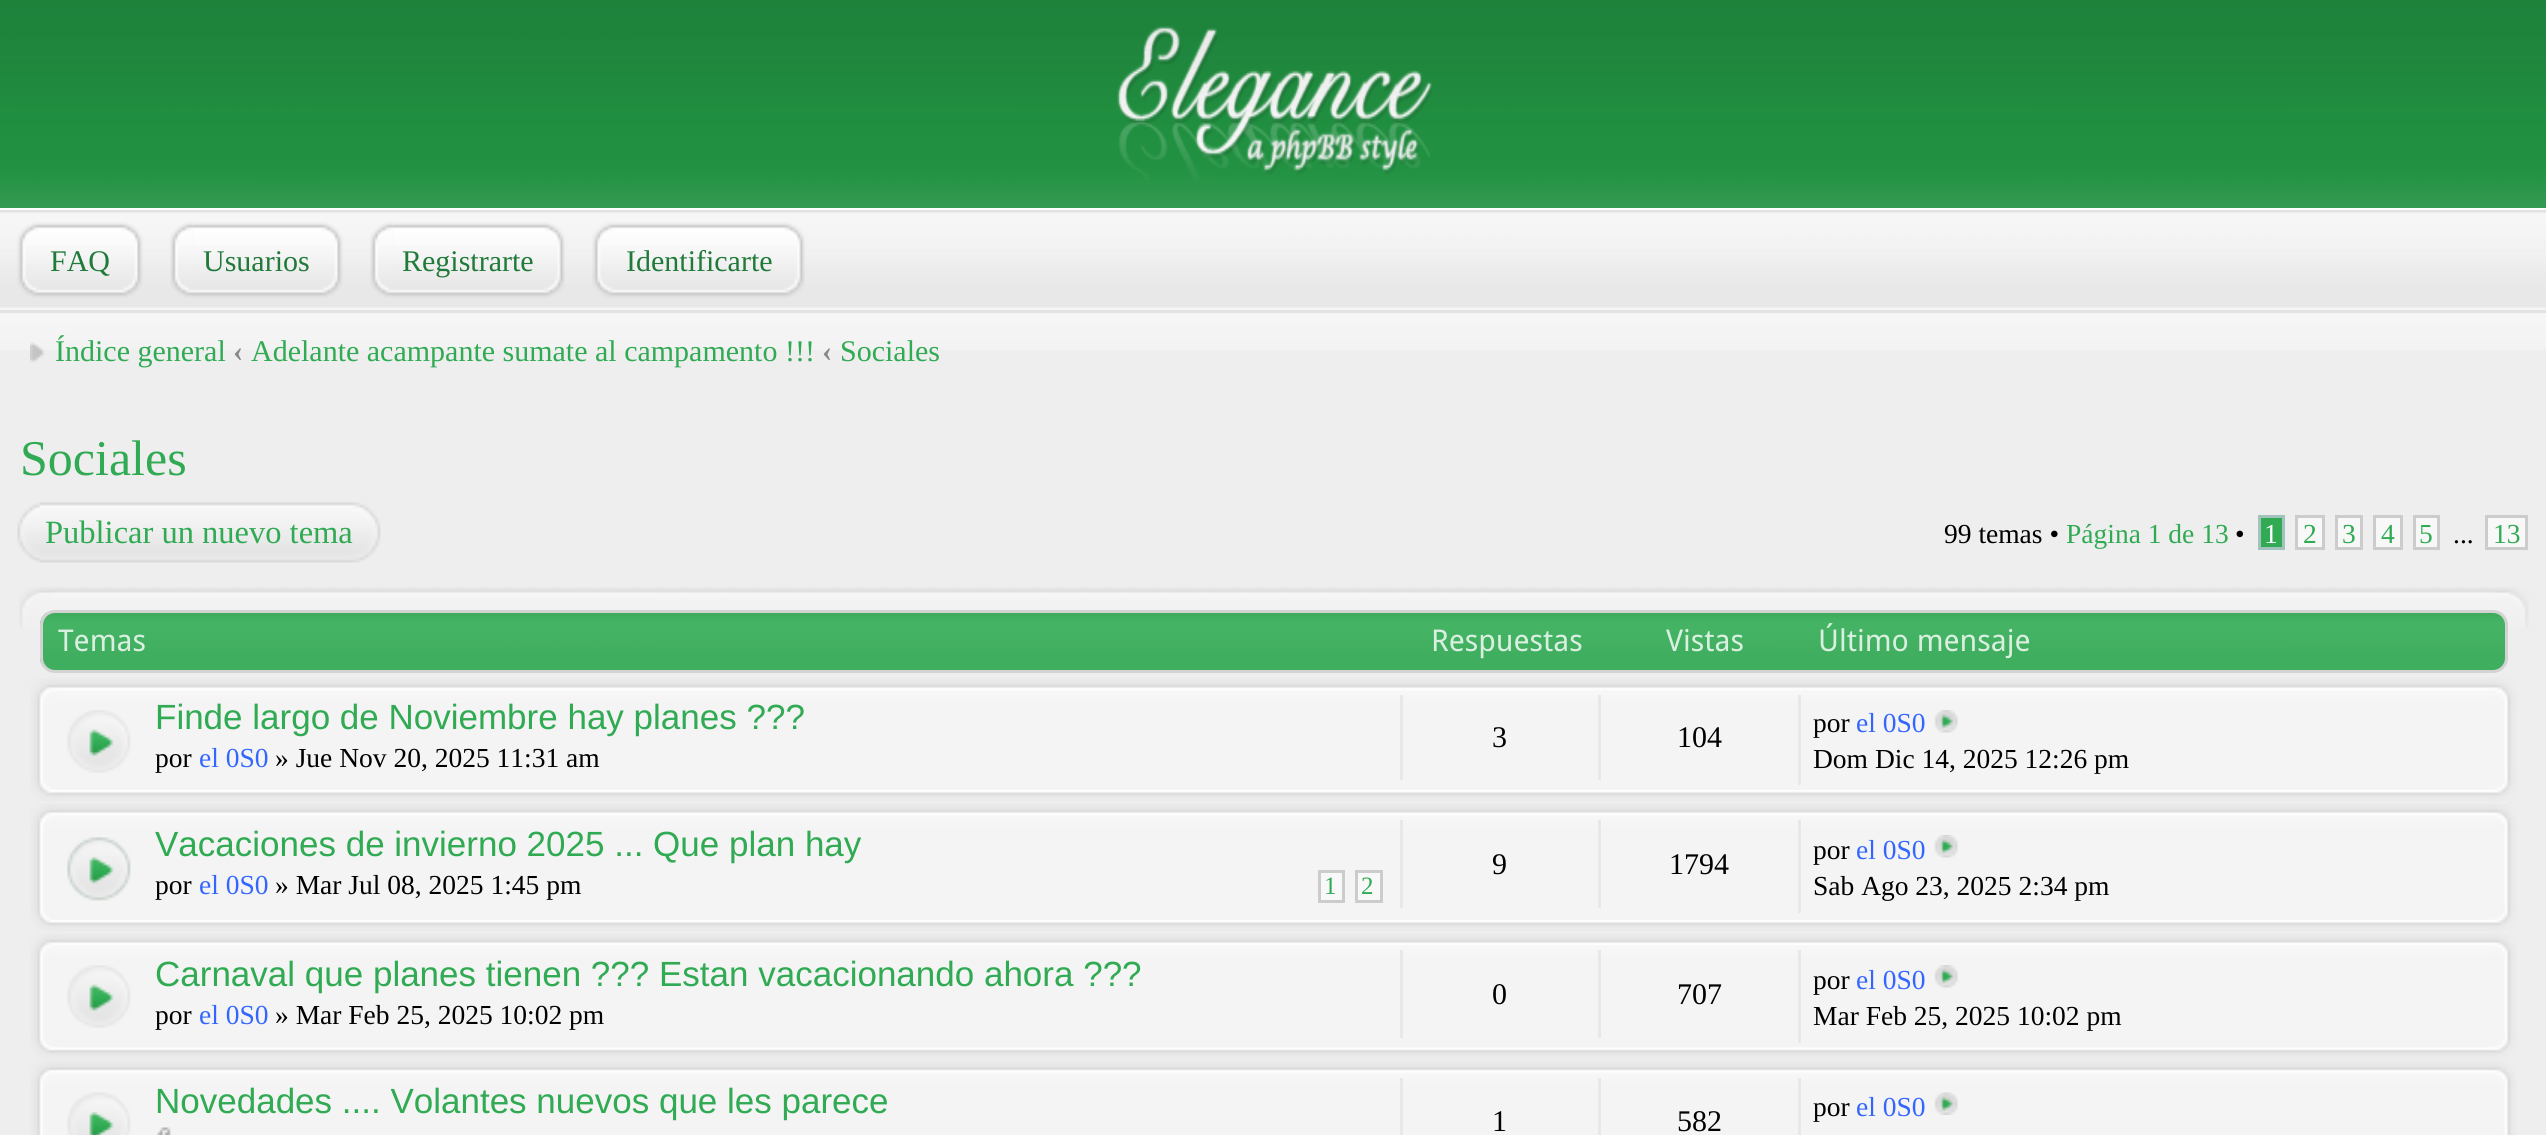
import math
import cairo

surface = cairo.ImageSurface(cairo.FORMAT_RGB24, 2546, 1135)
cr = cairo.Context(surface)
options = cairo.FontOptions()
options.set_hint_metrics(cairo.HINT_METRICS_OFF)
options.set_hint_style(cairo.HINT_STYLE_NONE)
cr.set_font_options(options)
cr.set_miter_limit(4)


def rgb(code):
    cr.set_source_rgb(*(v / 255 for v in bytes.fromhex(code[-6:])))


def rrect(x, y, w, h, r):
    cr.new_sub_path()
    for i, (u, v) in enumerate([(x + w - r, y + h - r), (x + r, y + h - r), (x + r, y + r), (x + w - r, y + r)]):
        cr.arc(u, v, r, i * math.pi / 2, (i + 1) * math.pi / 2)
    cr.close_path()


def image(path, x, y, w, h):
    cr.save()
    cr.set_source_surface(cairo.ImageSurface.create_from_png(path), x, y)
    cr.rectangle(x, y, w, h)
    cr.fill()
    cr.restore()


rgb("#eeeeee")
cr.paint()
image("img/1.png", 0, 0, 2546, 208)
rgb("#ffffff")
cr.rectangle(0, 208, 2546, 2)
cr.fill()
image("img/2.png", 1117, 26, 316, 155)
image("img/3.png", 0, 210, 2546, 100)
image("img/4.png", 40, 222, 103, 76)
image("img/5.png", 17, 222, 23, 76)
image("img/6.png", 192, 222, 151, 76)
image("img/7.png", 170, 222, 23, 76)
image("img/8.png", 392, 222, 173, 76)
image("img/9.png", 370, 222, 23, 76)
image("img/10.png", 615, 222, 190, 76)
image("img/11.png", 592, 222, 23, 76)
image("img/12.png", 0, 313, 2546, 37)
rgb("#e2e2e2")
cr.rectangle(0, 310, 2546, 3)
cr.fill()
image("img/13.png", 30, 342, 15, 21)
image("img/14.png", 40, 502, 341, 61)
image("img/15.png", 17, 502, 23, 61)
rgb("#30aa53")
cr.rectangle(2259.5, 516.5, 24, 32)
cr.fill_preserve()
rgb("#a2c2bd")
cr.set_line_width(3)
cr.stroke()
rgb("#f8f8f8")
cr.rectangle(2296.5, 516.5, 27, 32)
cr.fill_preserve()
rgb("#cccccc")
cr.stroke()
rgb("#f8f8f8")
cr.rectangle(2336.5, 516.5, 25, 32)
cr.fill_preserve()
rgb("#cccccc")
cr.stroke()
rgb("#f8f8f8")
cr.rectangle(2374.5, 516.5, 27, 32)
cr.fill_preserve()
rgb("#cccccc")
cr.stroke()
rgb("#f8f8f8")
cr.rectangle(2414.5, 516.5, 24, 32)
cr.fill_preserve()
rgb("#cccccc")
cr.stroke()
rgb("#f8f8f8")
cr.rectangle(2486.5, 516.5, 40, 32)
cr.fill_preserve()
rgb("#cccccc")
cr.stroke()
image("img/16.png", 19, 587, 2510, 41)
image("img/17.png", 40, 612, 2468, 60)
rrect(41.5, 611.5, 2465, 60, 13.5)
rgb("#d3d3d3")
cr.stroke()
rgb("#f4f4f4")
cr.rectangle(30, 678, 2488, 255)
cr.fill()
image("img/18.png", 30, 677, 2488, 126)
image("img/19.png", 67, 710, 64, 63)
for x, y, w, h, color in [
    (1400, 695, 3, 85, "#e8e8e8"),
    (1598, 695, 3, 85, "#e8e8e8"),
    (1798, 695, 3, 90, "#e8e8e8"),
]:
    rgb(color)
    cr.rectangle(x, y, w, h)
    cr.fill()
image("img/20.png", 1934, 710, 24, 23)
image("img/21.png", 30, 803, 2488, 130)
image("img/22.png", 67, 837, 64, 64)
rgb("#f8f8f8")
cr.rectangle(1319.5, 871.5, 24, 30)
cr.fill_preserve()
rgb("#cccccc")
cr.stroke()
rgb("#f8f8f8")
cr.rectangle(1356.5, 871.5, 25, 30)
cr.fill_preserve()
rgb("#cccccc")
cr.stroke()
for x, y, w, h, color in [
    (1400, 820, 3, 88, "#e8e8e8"),
    (1598, 820, 3, 88, "#e8e8e8"),
    (1798, 820, 3, 93, "#e8e8e8"),
]:
    rgb(color)
    cr.rectangle(x, y, w, h)
    cr.fill()
image("img/20.png", 1934, 835, 24, 23)
rgb("#f4f4f4")
cr.rectangle(45, 933, 2473, 202)
cr.fill()
image("img/23.png", 30, 933, 2488, 127)
image("img/19.png", 67, 965, 64, 63)
for x, y, w, h, color in [
    (1400, 950, 3, 88, "#e8e8e8"),
    (1598, 950, 3, 88, "#e8e8e8"),
    (1798, 950, 3, 93, "#e8e8e8"),
]:
    rgb(color)
    cr.rectangle(x, y, w, h)
    cr.fill()
image("img/20.png", 1934, 965, 24, 23)
image("img/24.png", 30, 1060, 2488, 75)
image("img/25.png", 67, 1092, 64, 43)
image("img/26.png", 157, 1127, 14, 8)
for x, y, w, h, color in [
    (1400, 1078, 3, 57, "#e8e8e8"),
    (1598, 1078, 3, 57, "#e8e8e8"),
    (1798, 1078, 3, 57, "#e8e8e8"),
]:
    rgb(color)
    cr.rectangle(x, y, w, h)
    cr.fill()
image("img/27.png", 1934, 1092, 24, 23)
cr.select_font_face("Liberation Serif")
cr.set_font_size(30)
rgb("#207a3a")
for x, y, s in [
    (50, 271, "FAQ"),
    (203, 271, "Usuarios"),
    (402, 271, "Registrarte"),
    (626, 271, "Identificarte"),
]:
    cr.move_to(x, y)
    cr.show_text(s)
rgb("#30aa53")
cr.move_to(55, 361)
cr.show_text("Índice general")
cr.select_font_face("Liberation Serif", cairo.FONT_SLANT_NORMAL, cairo.FONT_WEIGHT_BOLD)
rgb("#888888")
cr.move_to(233, 361)
cr.show_text("‹")
cr.select_font_face("Liberation Serif")
rgb("#30aa53")
cr.move_to(251, 361)
cr.show_text("Adelante acampante sumate al campamento !!!")
cr.select_font_face("Liberation Serif", cairo.FONT_SLANT_NORMAL, cairo.FONT_WEIGHT_BOLD)
rgb("#888888")
cr.move_to(822, 361)
cr.show_text("‹")
cr.select_font_face("Liberation Serif")
rgb("#30aa53")
cr.move_to(840, 361)
cr.show_text("Sociales")
cr.set_font_size(50)
cr.move_to(20, 475)
cr.show_text("Sociales")
cr.set_font_size(32.5)
cr.move_to(45, 543)
cr.show_text("Publicar un nuevo tema")
cr.set_font_size(27.5)
rgb("#000000")
cr.move_to(1944, 543)
cr.show_text("99 temas •")
rgb("#30aa53")
cr.move_to(2066, 543)
cr.show_text("Página 1 de 13")
rgb("#000000")
cr.move_to(2235, 543)
cr.show_text("•")
rgb("#ffffff")
cr.move_to(2264, 543)
cr.show_text("1")
rgb("#30aa53")
for x, y, s in [
    (2303, 543, "2"),
    (2342, 543, "3"),
    (2381, 543, "4"),
    (2419, 543, "5"),
    (2493, 543, "13"),
]:
    cr.move_to(x, y)
    cr.show_text(s)
rgb("#000000")
cr.move_to(2453, 543)
cr.show_text("...")
cr.select_font_face("Droid Sans")
cr.set_font_size(30)
rgb("#d9efe0")
for x, y, s in [
    (58, 651, "Temas"),
    (1431, 651, "Respuestas"),
    (1666, 651, "Vistas"),
    (1818, 651, "Último mensaje"),
]:
    cr.move_to(x, y)
    cr.show_text(s)
cr.select_font_face("Liberation Sans")
cr.set_font_size(35)
rgb("#30aa53")
cr.move_to(155, 729)
cr.show_text("Finde largo de Noviembre hay planes ???")
cr.select_font_face("Liberation Serif")
cr.set_font_size(27.5)
rgb("#000000")
cr.move_to(155, 767)
cr.show_text("por")
rgb("#3366ff")
cr.move_to(199, 767)
cr.show_text("el 0S0")
rgb("#000000")
cr.move_to(275, 767)
cr.show_text("» Jue Nov 20, 2025 11:31 am")
cr.set_font_size(30)
cr.move_to(1492, 747)
cr.show_text("3")
cr.move_to(1677, 747)
cr.show_text("104")
cr.set_font_size(27.5)
cr.move_to(1813, 732)
cr.show_text("por")
rgb("#3366ff")
cr.move_to(1856, 732)
cr.show_text("el 0S0")
rgb("#000000")
cr.move_to(1813, 768)
cr.show_text("Dom Dic 14, 2025 12:26 pm")
cr.select_font_face("Liberation Sans")
cr.set_font_size(35)
rgb("#30aa53")
cr.move_to(155, 856)
cr.show_text("Vacaciones de invierno 2025 ... Que plan hay")
cr.select_font_face("Liberation Serif")
cr.set_font_size(27.5)
rgb("#000000")
cr.move_to(155, 894)
cr.show_text("por")
rgb("#3366ff")
cr.move_to(199, 894)
cr.show_text("el 0S0")
rgb("#000000")
cr.move_to(275, 894)
cr.show_text("» Mar Jul 08, 2025 1:45 pm")
cr.set_font_size(25)
rgb("#30aa53")
cr.move_to(1324, 894)
cr.show_text("1")
cr.move_to(1361, 894)
cr.show_text("2")
cr.set_font_size(30)
rgb("#000000")
cr.move_to(1492, 874)
cr.show_text("9")
cr.move_to(1669, 874)
cr.show_text("1794")
cr.set_font_size(27.5)
cr.move_to(1813, 859)
cr.show_text("por")
rgb("#3366ff")
cr.move_to(1856, 859)
cr.show_text("el 0S0")
rgb("#000000")
cr.move_to(1813, 895)
cr.show_text("Sab Ago 23, 2025 2:34 pm")
cr.select_font_face("Liberation Sans")
cr.set_font_size(35)
rgb("#30aa53")
cr.move_to(155, 986)
cr.show_text("Carnaval que planes tienen ??? Estan vacacionando ahora ???")
cr.select_font_face("Liberation Serif")
cr.set_font_size(27.5)
rgb("#000000")
cr.move_to(155, 1024)
cr.show_text("por")
rgb("#3366ff")
cr.move_to(199, 1024)
cr.show_text("el 0S0")
rgb("#000000")
cr.move_to(275, 1024)
cr.show_text("» Mar Feb 25, 2025 10:02 pm")
cr.set_font_size(30)
cr.move_to(1492, 1004)
cr.show_text("0")
cr.move_to(1677, 1004)
cr.show_text("707")
cr.set_font_size(27.5)
cr.move_to(1813, 989)
cr.show_text("por")
rgb("#3366ff")
cr.move_to(1856, 989)
cr.show_text("el 0S0")
rgb("#000000")
cr.move_to(1813, 1025)
cr.show_text("Mar Feb 25, 2025 10:02 pm")
cr.select_font_face("Liberation Sans")
cr.set_font_size(35)
rgb("#30aa53")
cr.move_to(155, 1113)
cr.show_text("Novedades .... Volantes nuevos que les parece")
cr.select_font_face("Liberation Serif")
cr.set_font_size(30)
rgb("#000000")
cr.move_to(1492, 1131)
cr.show_text("1")
cr.move_to(1677, 1131)
cr.show_text("582")
cr.set_font_size(27.5)
cr.move_to(1813, 1116)
cr.show_text("por")
rgb("#3366ff")
cr.move_to(1856, 1116)
cr.show_text("el 0S0")
surface.write_to_png("page.png")
